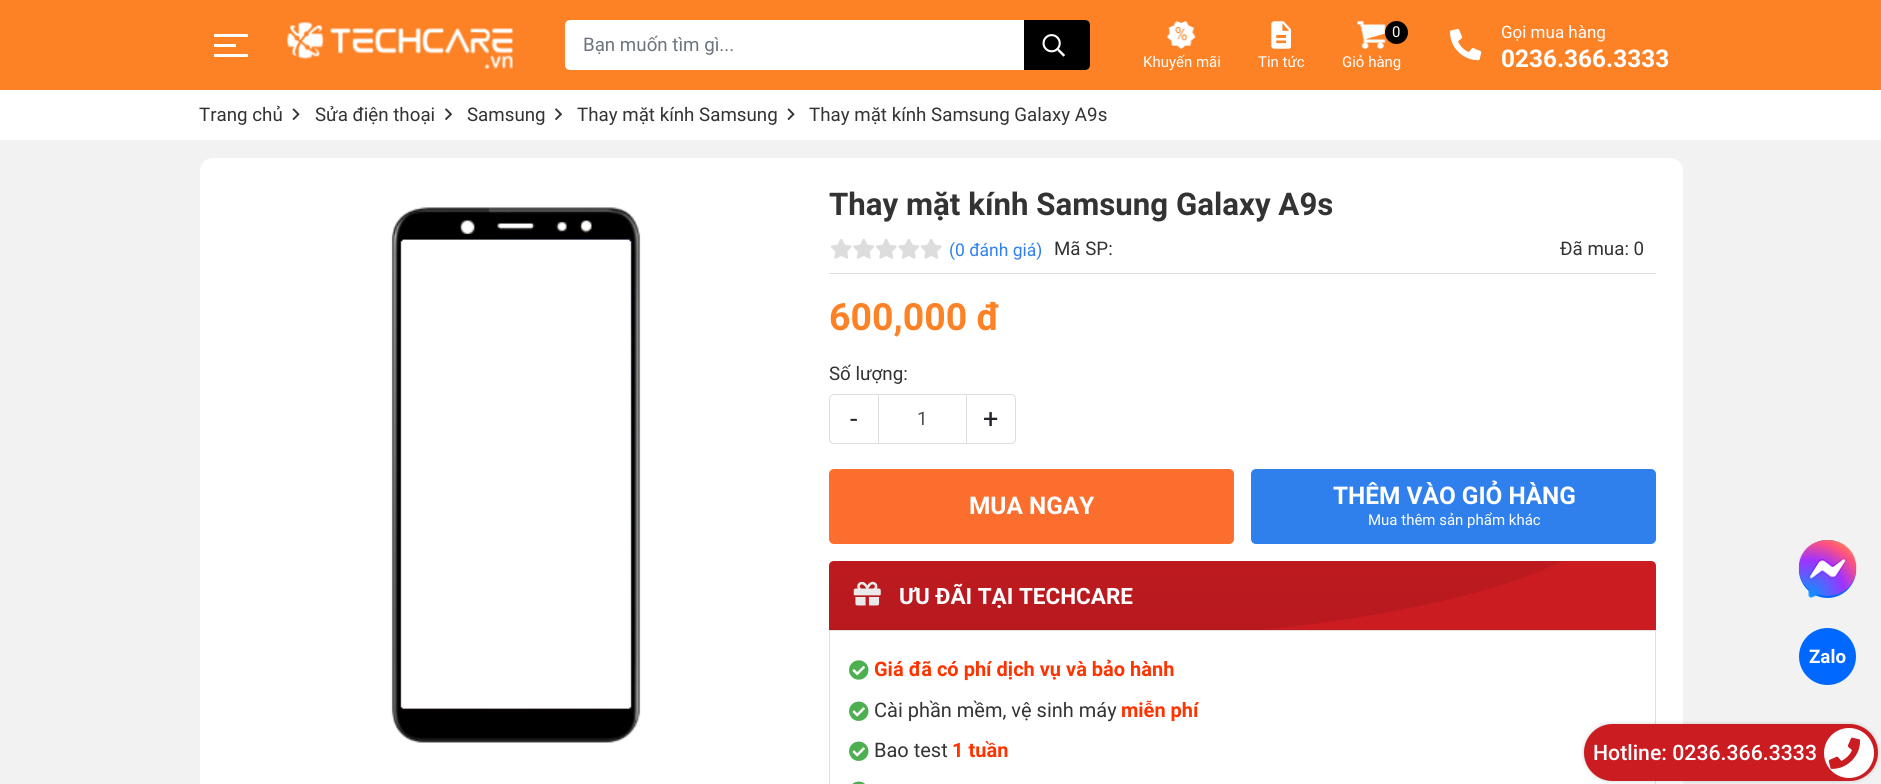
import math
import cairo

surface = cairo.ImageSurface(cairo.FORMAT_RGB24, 1881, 784)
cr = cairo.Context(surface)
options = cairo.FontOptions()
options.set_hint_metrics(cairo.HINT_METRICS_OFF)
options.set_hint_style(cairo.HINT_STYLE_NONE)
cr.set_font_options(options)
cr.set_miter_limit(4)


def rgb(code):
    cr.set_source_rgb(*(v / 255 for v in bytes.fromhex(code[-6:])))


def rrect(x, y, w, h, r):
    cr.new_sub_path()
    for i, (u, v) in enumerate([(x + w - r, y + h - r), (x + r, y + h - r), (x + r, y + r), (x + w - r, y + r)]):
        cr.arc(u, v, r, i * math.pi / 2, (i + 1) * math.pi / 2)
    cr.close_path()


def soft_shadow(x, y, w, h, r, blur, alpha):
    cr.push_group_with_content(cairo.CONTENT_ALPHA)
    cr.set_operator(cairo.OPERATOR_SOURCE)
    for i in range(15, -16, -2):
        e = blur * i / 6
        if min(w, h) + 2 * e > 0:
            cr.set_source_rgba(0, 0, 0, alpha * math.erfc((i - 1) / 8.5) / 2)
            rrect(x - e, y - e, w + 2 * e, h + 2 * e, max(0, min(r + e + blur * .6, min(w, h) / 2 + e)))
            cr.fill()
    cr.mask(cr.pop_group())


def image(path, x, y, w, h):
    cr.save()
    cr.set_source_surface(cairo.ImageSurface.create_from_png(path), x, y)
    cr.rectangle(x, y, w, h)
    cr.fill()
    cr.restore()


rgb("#f2f2f2")
cr.paint()
for x, y, w, h, color in [
    (0, 0, 1881, 90, "#fd8226"),
    (214, 44, 22, 3, "#ffffff"),
    (214, 34, 34, 3, "#ffffff"),
    (214, 54, 34, 3, "#ffffff"),
]:
    rgb(color)
    cr.rectangle(x, y, w, h)
    cr.fill()
image("img/1.png", 287, 22, 226, 47)
rrect(565, 20, 525, 50, 5)
cr.fill()
rgb("#000000")
cr.new_path()
cr.move_to(1024, 20)
cr.line_to(1085, 20)
cr.curve_to(1088, 20, 1090, 22, 1090, 25)
cr.line_to(1090, 65)
cr.curve_to(1090, 68, 1088, 70, 1085, 70)
cr.line_to(1024, 70)
cr.close_path()
cr.fill()
image("img/2.png", 1042, 34, 23, 23)
image("img/3.png", 1357, 21, 29, 28)
cr.arc(1396.5, 32.5, 11.5, 0, 2 * math.pi)
cr.fill()
image("img/4.png", 1450, 28, 32, 33)
image("img/5.png", 1167, 21, 29, 28)
image("img/6.png", 1271, 21, 20, 28)
rgb("#ffffff")
cr.rectangle(0, 90, 1881, 50)
cr.fill()
image("img/7.png", 292, 108, 8, 12)
image("img/8.png", 445, 108, 7, 12)
image("img/8.png", 555, 108, 7, 12)
image("img/7.png", 787, 108, 8, 12)
rrect(200, 158, 1483, 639, 13)
cr.fill()
image("img/9.png", 391, 207, 250, 536)
rgb("#e0e0e0")
cr.rectangle(829, 273, 827, 1)
cr.fill()
image("img/10.png", 830, 238, 22, 21)
image("img/11.png", 853, 238, 22, 21)
image("img/10.png", 875, 238, 22, 21)
image("img/11.png", 898, 238, 22, 21)
image("img/10.png", 920, 238, 22, 21)
cr.new_path()
cr.move_to(834, 394.5)
cr.line_to(878.5, 394.5)
cr.line_to(878.5, 443.5)
cr.line_to(834, 443.5)
cr.curve_to(831.5, 443.5, 829.5, 441.5, 829.5, 439)
cr.line_to(829.5, 399)
cr.curve_to(829.5, 396.5, 831.5, 394.5, 834, 394.5)
cr.close_path()
rgb("#dddddd")
cr.set_line_width(1)
cr.stroke()
cr.rectangle(879, 394, 87, 1)
cr.fill()
cr.rectangle(879, 443, 87, 1)
cr.fill()
cr.new_path()
cr.move_to(966.5, 394.5)
cr.line_to(1011, 394.5)
cr.curve_to(1013.5, 394.5, 1015.5, 396.5, 1015.5, 399)
cr.line_to(1015.5, 439)
cr.curve_to(1015.5, 441.5, 1013.5, 443.5, 1011, 443.5)
cr.line_to(966.5, 443.5)
cr.close_path()
cr.stroke()
rgb("#fb6e2e")
rrect(829, 469, 405, 75, 5)
cr.fill()
rgb("#2f80ed")
rrect(1251, 469, 405, 75, 5)
cr.fill()
rgb("#cb1c22")
cr.new_path()
cr.move_to(834, 561)
cr.line_to(1651, 561)
cr.curve_to(1654, 561, 1656, 563, 1656, 566)
cr.line_to(1656, 630)
cr.line_to(829, 630)
cr.line_to(829, 566)
cr.curve_to(829, 563, 831, 561, 834, 561)
cr.close_path()
cr.fill()
image("img/12.png", 853, 581, 28, 25)
gradient = cairo.LinearGradient(994, 367, 994, 644)
gradient.add_color_stop_rgba(0, 0, 0, 0, 0)
gradient.add_color_stop_rgba(1, 0, 0, 0, 0.1)
cr.set_source(gradient)
cr.new_path()
cr.move_to(834, 561)
cr.line_to(1563, 561)
cr.curve_to(1503, 591, 1396, 616, 1262, 630)
cr.line_to(829, 630)
cr.line_to(829, 566)
cr.curve_to(829, 563, 831, 561, 834, 561)
cr.close_path()
cr.fill()
cr.rectangle(829.5, 630.5, 826, 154)
rgb("#e0e0e0")
cr.stroke()
image("img/13.png", 849, 660, 20, 20)
image("img/14.png", 849, 701, 20, 20)
image("img/14.png", 849, 741, 20, 20)
image("img/15.png", 852, 781, 13, 3)
rgb("#0068ff")
rrect(1799, 540, 57, 58, 28.5)
cr.fill()
image("img/16.png", 1798, 540, 59, 58)
cr.arc(1827.5, 656.5, 28.5, 0, 2 * math.pi)
cr.fill()
rgb("#000000")
soft_shadow(1584, 724, 294, 57, 28.5, 2, 0.2)
rgb("#cb1c22")
rrect(1584, 724, 294, 57, 28.5)
cr.fill()
rgb("#ffffff")
cr.arc(1849, 753, 25, 0, 2 * math.pi)
cr.fill()
image("img/17.png", 1828, 737, 33, 32)
cr.select_font_face("Roboto")
cr.set_font_size(18.75)
rgb("#6c757d")
cr.move_to(583, 51)
cr.show_text("Bạn muốn tìm gì...")
cr.set_font_size(15)
rgb("#ffffff")
cr.move_to(1392, 37)
cr.show_text("0")
cr.move_to(1342, 67)
cr.show_text("Giỏ hàng")
cr.set_font_size(17)
cr.move_to(1501, 38)
cr.show_text("Gọi mua hàng")
cr.select_font_face("Roboto", cairo.FONT_SLANT_NORMAL, cairo.FONT_WEIGHT_BOLD)
cr.set_font_size(24.4)
cr.move_to(1501, 67)
cr.show_text("0236.366.3333")
cr.select_font_face("Roboto")
cr.set_font_size(15)
cr.move_to(1143, 67)
cr.show_text("Khuyến mãi")
cr.move_to(1258, 67)
cr.show_text("Tin tức")
cr.set_font_size(18.75)
rgb("#333333")
for x, y, s in [
    (199, 121, "Trang chủ"),
    (315, 121, "Sửa điện thoại"),
    (467, 121, "Samsung"),
    (577, 121, "Thay mặt kính Samsung"),
    (809, 121, "Thay mặt kính Samsung Galaxy A9s"),
]:
    cr.move_to(x, y)
    cr.show_text(s)
cr.select_font_face("Roboto", cairo.FONT_SLANT_NORMAL, cairo.FONT_WEIGHT_BOLD)
cr.set_font_size(31.25)
cr.move_to(829, 215)
cr.show_text("Thay mặt kính Samsung Galaxy A9s")
cr.select_font_face("Roboto")
cr.set_font_size(17.5)
rgb("#2f80ed")
cr.move_to(949, 256)
cr.show_text("(0 đánh giá)")
cr.set_font_size(18.75)
rgb("#333333")
cr.move_to(1054, 255)
cr.show_text("Mã SP:")
cr.move_to(1560, 255)
cr.show_text("Đã mua: 0")
cr.select_font_face("Roboto", cairo.FONT_SLANT_NORMAL, cairo.FONT_WEIGHT_BOLD)
cr.set_font_size(37.5)
rgb("#fd8226")
cr.move_to(829, 330)
cr.show_text("600,000 đ")
cr.select_font_face("Roboto")
cr.set_font_size(18.75)
rgb("#333333")
cr.move_to(829, 380)
cr.show_text("Số lượng:")
cr.set_font_size(27)
rgb("#212529")
cr.move_to(850, 428)
cr.show_text("-")
cr.set_font_size(18.75)
rgb("#495057")
cr.move_to(917, 425)
cr.show_text("1")
cr.set_font_size(27)
rgb("#212529")
cr.move_to(983, 428)
cr.show_text("+")
cr.select_font_face("Roboto", cairo.FONT_SLANT_NORMAL, cairo.FONT_WEIGHT_BOLD)
cr.set_font_size(24.4)
rgb("#ffffff")
cr.move_to(969, 514)
cr.show_text("MUA NGAY")
cr.move_to(1333, 504)
cr.show_text("THÊM VÀO GIỎ HÀNG")
cr.select_font_face("Roboto")
cr.set_font_size(15)
cr.move_to(1368, 525)
cr.show_text("Mua thêm sản phẩm khác")
cr.select_font_face("Roboto", cairo.FONT_SLANT_NORMAL, cairo.FONT_WEIGHT_BOLD)
cr.set_font_size(22.5)
cr.move_to(899, 604)
cr.show_text("ƯU ĐÃI TẠI TECHCARE")
cr.set_font_size(20)
rgb("#ff3300")
cr.move_to(874, 676)
cr.show_text("Giá đã có phí dịch vụ và bảo hành")
cr.select_font_face("Roboto")
rgb("#333333")
cr.move_to(874, 717)
cr.show_text("Cài phần mềm, vệ sinh máy")
cr.select_font_face("Roboto", cairo.FONT_SLANT_NORMAL, cairo.FONT_WEIGHT_BOLD)
rgb("#ff3300")
cr.move_to(1121, 717)
cr.show_text("miễn phí")
cr.select_font_face("Roboto")
rgb("#333333")
cr.move_to(874, 757)
cr.show_text("Bao test")
cr.select_font_face("Roboto", cairo.FONT_SLANT_NORMAL, cairo.FONT_WEIGHT_BOLD)
rgb("#ff3300")
cr.move_to(952, 757)
cr.show_text("1 tuần")
cr.set_font_size(18.75)
rgb("#ffffff")
cr.move_to(1809, 663)
cr.show_text("Zalo")
cr.select_font_face("Roboto Medium")
cr.set_font_size(21.25)
cr.move_to(1593, 760)
cr.show_text("Hotline: 0236.366.3333")
surface.write_to_png("page.png")
